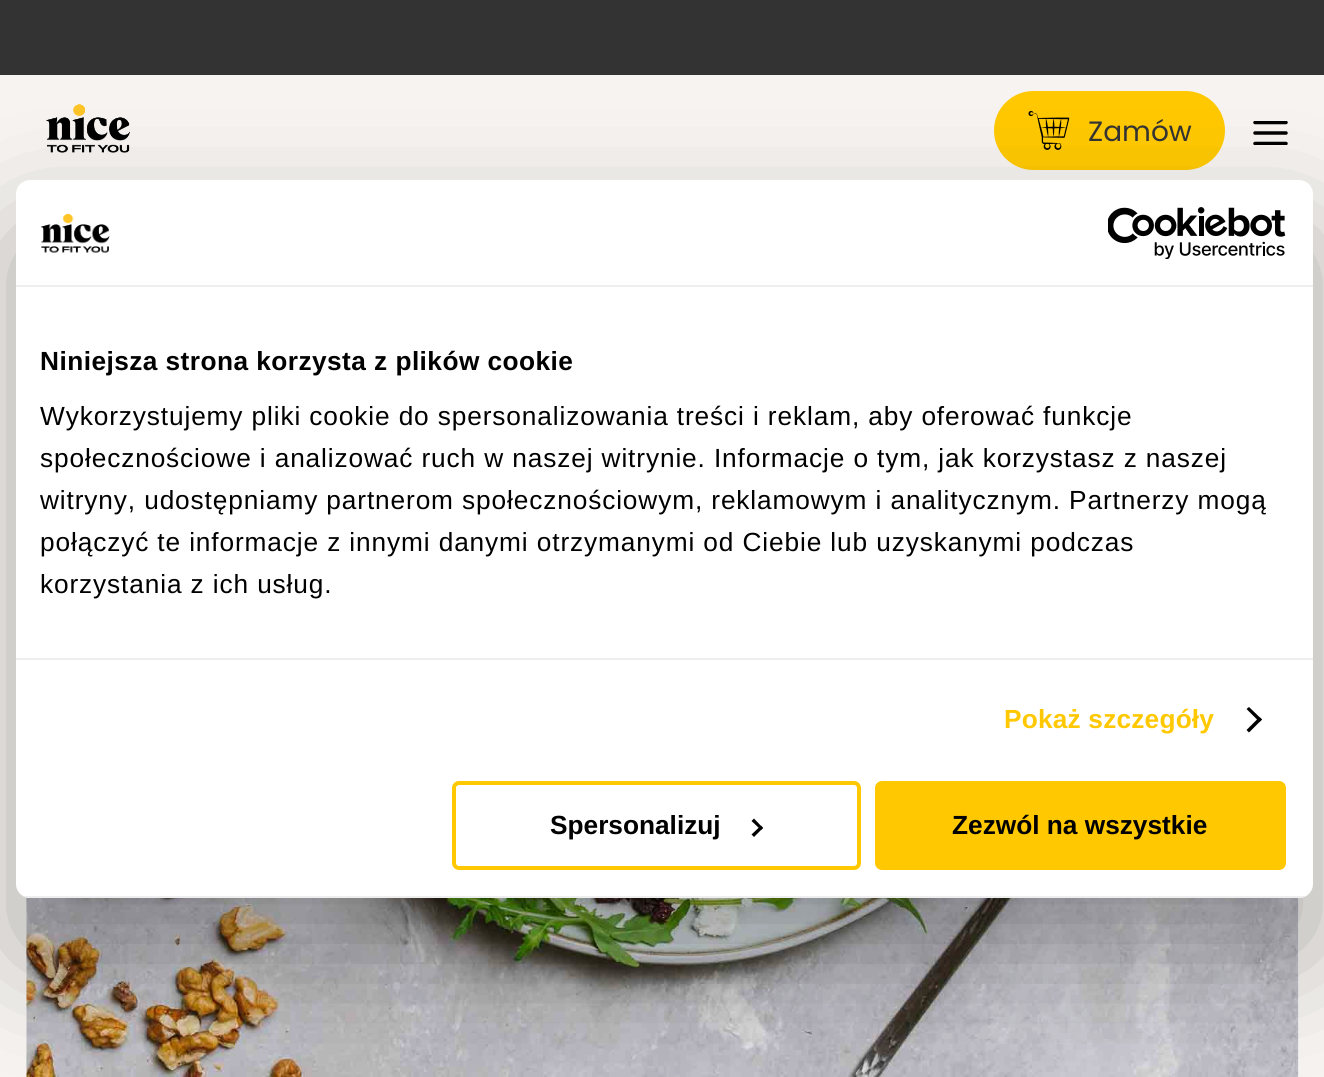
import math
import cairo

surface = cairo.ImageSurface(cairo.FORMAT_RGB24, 1324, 1077)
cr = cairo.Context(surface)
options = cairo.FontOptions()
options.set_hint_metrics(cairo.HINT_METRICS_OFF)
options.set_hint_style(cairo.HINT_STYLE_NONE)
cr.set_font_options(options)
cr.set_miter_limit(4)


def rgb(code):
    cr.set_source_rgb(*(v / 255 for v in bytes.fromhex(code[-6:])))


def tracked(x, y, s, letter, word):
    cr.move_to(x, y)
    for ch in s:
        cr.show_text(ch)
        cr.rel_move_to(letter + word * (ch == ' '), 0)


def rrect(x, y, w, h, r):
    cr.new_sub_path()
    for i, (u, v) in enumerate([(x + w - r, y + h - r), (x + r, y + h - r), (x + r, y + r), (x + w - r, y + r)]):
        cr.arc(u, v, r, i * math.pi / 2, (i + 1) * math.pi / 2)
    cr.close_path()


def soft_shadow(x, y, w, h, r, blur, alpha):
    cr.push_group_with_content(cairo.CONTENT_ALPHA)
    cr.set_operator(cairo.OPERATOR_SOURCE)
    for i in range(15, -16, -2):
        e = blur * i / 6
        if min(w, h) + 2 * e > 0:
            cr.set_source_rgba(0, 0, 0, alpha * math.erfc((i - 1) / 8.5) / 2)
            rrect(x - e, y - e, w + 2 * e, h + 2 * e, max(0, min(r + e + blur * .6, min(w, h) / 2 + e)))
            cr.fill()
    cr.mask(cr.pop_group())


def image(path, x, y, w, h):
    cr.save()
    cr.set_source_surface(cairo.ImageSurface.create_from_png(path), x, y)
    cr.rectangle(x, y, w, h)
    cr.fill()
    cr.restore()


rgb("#f6f3f0")
cr.paint()
rgb("#333333")
cr.rectangle(0, 0, 1324, 75)
cr.fill()
image("img/1.png", 46, 104, 84, 49)
rgb("#ffc800")
rrect(994, 91, 231, 79, 39.5)
cr.fill()
image("img/2.png", 1028, 110, 42, 40)
cr.save()
cr.rectangle(1253, 121, 35, 24)
cr.clip()
cr.new_path()
cr.move_to(1255, 133)
cr.line_to(1286, 133)
cr.move_to(1255, 122.5)
cr.line_to(1286, 122.5)
cr.move_to(1255, 143.5)
cr.line_to(1286, 143.5)
rgb("#000000")
cr.set_line_width(3.5)
cr.set_line_cap(cairo.LINE_CAP_ROUND)
cr.set_line_join(cairo.LINE_JOIN_ROUND)
cr.stroke()
cr.restore()
rgb("#ffffff")
cr.rectangle(26, 897, 1273, 180)
cr.fill()
image("img/5.png", 26, 897, 1273, 180)
rgb("#000000")
soft_shadow(16, 236, 1297, 718, 14, 59.5, 0.3)
rgb("#ffffff")
rrect(16, 180, 1297, 718, 14)
cr.fill()
rgb("#eeeeee")
cr.rectangle(16, 285, 1297, 2)
cr.fill()
image("img/3.png", 40, 213, 70, 40)
image("img/4.png", 1108, 207, 178, 52)
cr.rectangle(16, 658, 1297, 2)
cr.fill()
rgb("#000000")
cr.new_path()
cr.move_to(1249, 707)
cr.line_to(1262, 719.5)
cr.line_to(1259.5, 722)
cr.line_to(1246.5, 709)
cr.close_path()
cr.fill()
cr.new_path()
cr.move_to(1259.5, 717)
cr.line_to(1262, 719.5)
cr.line_to(1249, 732.5)
cr.line_to(1246.5, 730)
cr.close_path()
cr.fill()
cr.save()
rrect(16, 180, 1297, 718, 14)
cr.clip()
rgb("#eeeeee")
cr.rectangle(16, 896, 1297, 2)
cr.fill()
cr.restore()
rrect(454, 783, 405, 85, 5)
rgb("#ffc800")
cr.set_line_width(4)
cr.stroke()
rgb("#000000")
cr.new_path()
cr.move_to(754, 818.5)
cr.line_to(763, 828)
cr.line_to(761, 830)
cr.line_to(751.5, 821)
cr.close_path()
cr.fill()
cr.new_path()
cr.move_to(761, 825.5)
cr.line_to(763, 828)
cr.line_to(754, 837)
cr.line_to(751.5, 834.5)
cr.close_path()
cr.fill()
rgb("#ffc800")
rrect(877, 783, 407, 85, 5)
cr.fill_preserve()
cr.stroke()
cr.select_font_face("Poppins")
cr.set_font_size(28)
rgb("#333333")
cr.move_to(1088, 141)
cr.show_text("Zamów")
cr.select_font_face("Liberation Sans", cairo.FONT_SLANT_NORMAL, cairo.FONT_WEIGHT_BOLD)
cr.set_font_size(26.25)
rgb("#000000")
tracked(40, 370, "Niniejsza strona korzysta z plików cookie", 0.45, 0)
cr.select_font_face("Liberation Sans")
for x, y, s in [
    (40, 425, "Wykorzystujemy pliki cookie do spersonalizowania treści i reklam, aby oferować funkcje"),
    (40, 467, "społecznościowe i analizować ruch w naszej witrynie. Informacje o tym, jak korzystasz z naszej"),
    (40, 509, "witryny, udostępniamy partnerom społecznościowym, reklamowym i analitycznym. Partnerzy mogą"),
    (40, 551, "połączyć te informacje z innymi danymi otrzymanymi od Ciebie lub uzyskanymi podczas"),
    (40, 593, "korzystania z ich usług."),
]:
    tracked(x, y, s, 0.88, 0)
cr.select_font_face("Liberation Sans", cairo.FONT_SLANT_NORMAL, cairo.FONT_WEIGHT_BOLD)
rgb("#ffc800")
tracked(1004, 728, "Pokaż szczegóły", 0.2, 0)
rgb("#000000")
cr.move_to(550, 834)
cr.show_text("Spersonalizuj")
cr.move_to(952, 834)
cr.show_text("Zezwól na wszystkie")
surface.write_to_png("page.png")
